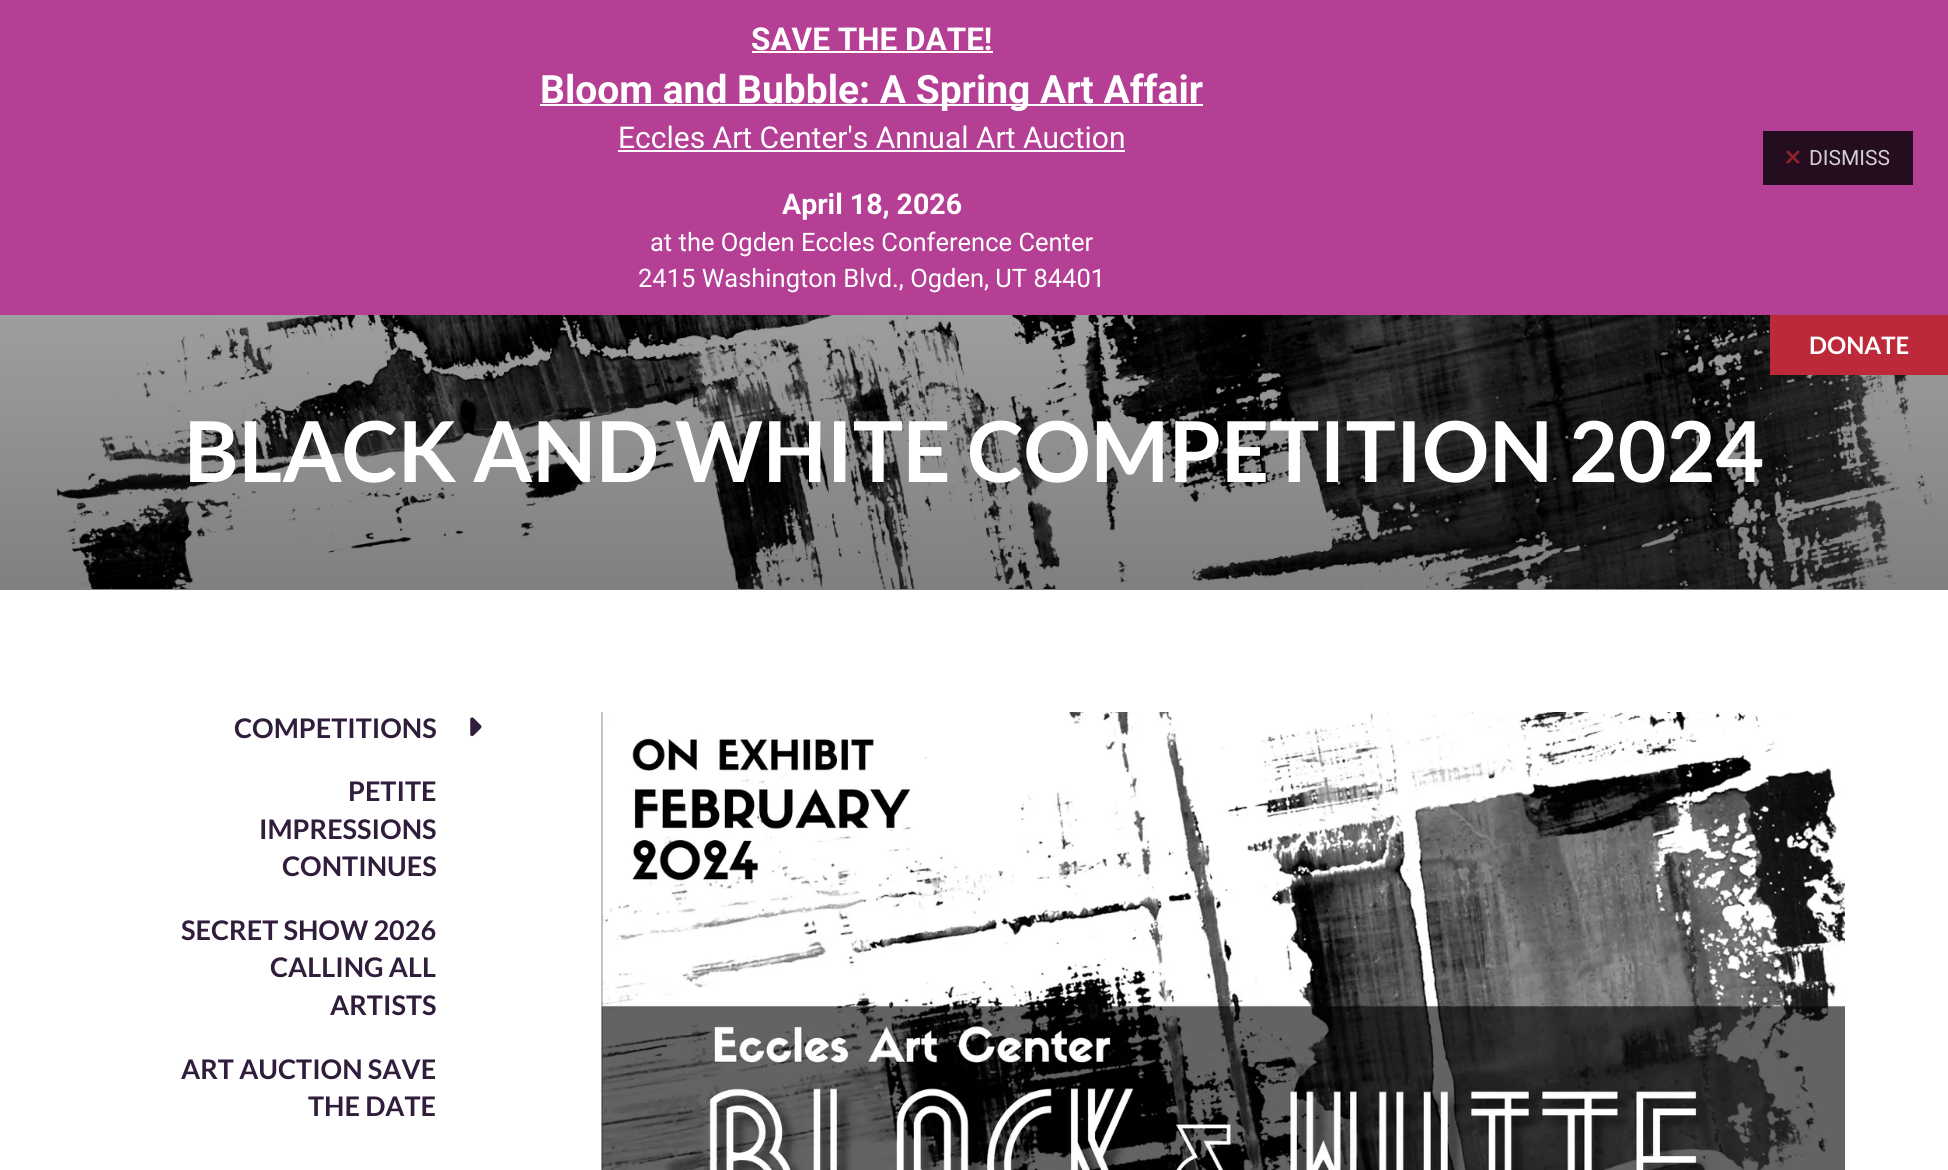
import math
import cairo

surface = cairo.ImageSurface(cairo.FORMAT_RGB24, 1948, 1170)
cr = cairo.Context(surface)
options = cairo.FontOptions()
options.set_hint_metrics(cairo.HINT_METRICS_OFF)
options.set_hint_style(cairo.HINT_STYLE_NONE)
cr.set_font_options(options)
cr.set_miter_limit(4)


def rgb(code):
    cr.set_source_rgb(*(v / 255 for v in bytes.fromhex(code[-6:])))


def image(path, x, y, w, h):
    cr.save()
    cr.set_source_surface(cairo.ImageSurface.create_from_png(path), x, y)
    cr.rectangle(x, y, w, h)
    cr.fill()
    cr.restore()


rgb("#ffffff")
cr.paint()
for x, y, w, h, color in [
    (0, 0, 1948, 315, "#b53f94"),
    (752, 51, 241, 2, "#ffffff"),
    (540, 104, 663, 2, "#ffffff"),
    (618, 150, 507, 2, "#ffffff"),
    (1763, 131, 150, 54, "#240d1e"),
]:
    rgb(color)
    cr.rectangle(x, y, w, h)
    cr.fill()
image("img/1.png", 1786, 150, 14, 14)
image("img/2.png", 56, 315, 1878, 274)
gradient = cairo.LinearGradient(974, -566, 974, 590)
gradient.add_color_stop_rgba(0, 0, 0, 0, 0)
gradient.add_color_stop_rgba(1, 0, 0, 0, 0.5)
cr.set_source(gradient)
cr.rectangle(0, 315, 1948, 275)
cr.fill()
rgb("#bc2a39")
cr.rectangle(1770, 315, 178, 60)
cr.fill()
image("img/3.png", 470, 717, 12, 20)
image("img/4.png", 601, 712, 1244, 458)
cr.select_font_face("Roboto", cairo.FONT_SLANT_NORMAL, cairo.FONT_WEIGHT_BOLD)
cr.set_font_size(31.5)
rgb("#ffffff")
cr.move_to(751, 50)
cr.show_text("SAVE THE DATE!")
cr.set_font_size(39)
cr.move_to(540, 103)
cr.show_text("Bloom and Bubble: A Spring Art Affair")
cr.select_font_face("Roboto")
cr.set_font_size(30)
cr.move_to(618, 148)
cr.show_text("Eccles Art Center's Annual Art Auction")
cr.select_font_face("Roboto", cairo.FONT_SLANT_NORMAL, cairo.FONT_WEIGHT_BOLD)
cr.set_font_size(28.5)
cr.move_to(782, 214)
cr.show_text("April 18, 2026")
cr.select_font_face("Roboto")
cr.set_font_size(25.5)
cr.move_to(650, 251)
cr.show_text("at the Ogden Eccles Conference Center")
cr.move_to(638, 287)
cr.show_text("2415 Washington Blvd., Ogden, UT 84401")
cr.set_font_size(21)
rgb("#d3cfd2")
cr.move_to(1809, 165)
cr.show_text("DISMISS")
cr.select_font_face("Lato", cairo.FONT_SLANT_NORMAL, cairo.FONT_WEIGHT_BOLD)
cr.set_font_size(24)
rgb("#ffffff")
cr.move_to(1809, 354)
cr.show_text("DONATE")
cr.set_font_size(84)
cr.move_to(184, 482)
cr.show_text("BLACK AND WHITE COMPETITION 2024")
cr.set_font_size(27)
rgb("#301c3b")
for x, y, s in [
    (234, 738, "COMPETITIONS"),
    (348, 801, "PETITE"),
    (259, 839, "IMPRESSIONS"),
    (282, 876, "CONTINUES"),
    (181, 940, "SECRET SHOW 2026"),
    (270, 977, "CALLING ALL"),
    (330, 1015, "ARTISTS"),
    (181, 1079, "ART AUCTION SAVE"),
    (308, 1116, "THE DATE"),
]:
    cr.move_to(x, y)
    cr.show_text(s)
surface.write_to_png("page.png")
